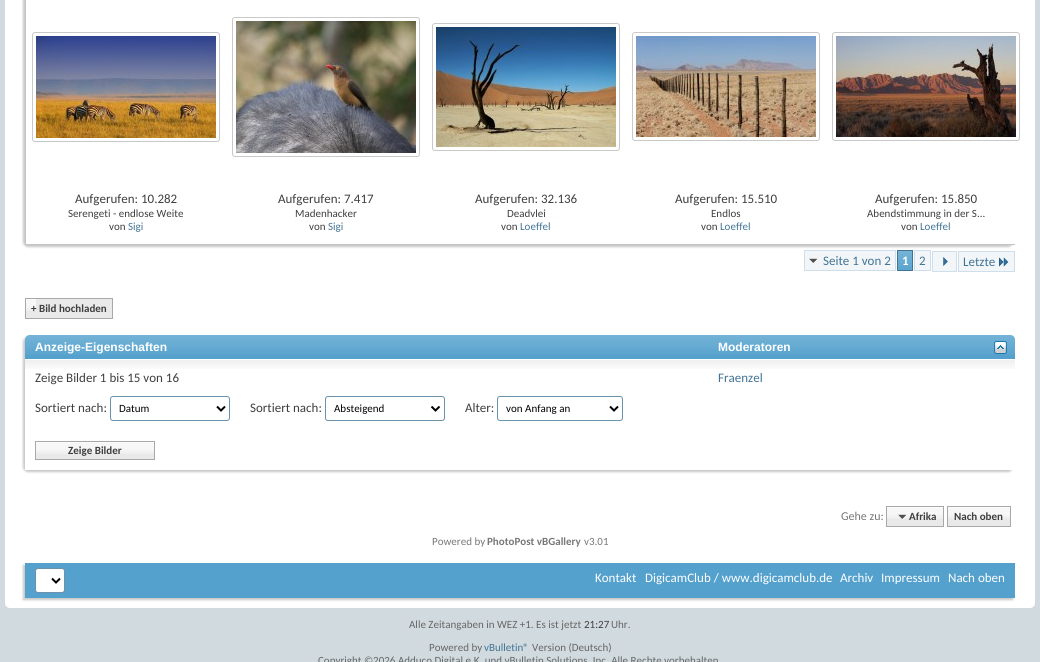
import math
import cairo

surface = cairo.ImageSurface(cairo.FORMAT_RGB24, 1040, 662)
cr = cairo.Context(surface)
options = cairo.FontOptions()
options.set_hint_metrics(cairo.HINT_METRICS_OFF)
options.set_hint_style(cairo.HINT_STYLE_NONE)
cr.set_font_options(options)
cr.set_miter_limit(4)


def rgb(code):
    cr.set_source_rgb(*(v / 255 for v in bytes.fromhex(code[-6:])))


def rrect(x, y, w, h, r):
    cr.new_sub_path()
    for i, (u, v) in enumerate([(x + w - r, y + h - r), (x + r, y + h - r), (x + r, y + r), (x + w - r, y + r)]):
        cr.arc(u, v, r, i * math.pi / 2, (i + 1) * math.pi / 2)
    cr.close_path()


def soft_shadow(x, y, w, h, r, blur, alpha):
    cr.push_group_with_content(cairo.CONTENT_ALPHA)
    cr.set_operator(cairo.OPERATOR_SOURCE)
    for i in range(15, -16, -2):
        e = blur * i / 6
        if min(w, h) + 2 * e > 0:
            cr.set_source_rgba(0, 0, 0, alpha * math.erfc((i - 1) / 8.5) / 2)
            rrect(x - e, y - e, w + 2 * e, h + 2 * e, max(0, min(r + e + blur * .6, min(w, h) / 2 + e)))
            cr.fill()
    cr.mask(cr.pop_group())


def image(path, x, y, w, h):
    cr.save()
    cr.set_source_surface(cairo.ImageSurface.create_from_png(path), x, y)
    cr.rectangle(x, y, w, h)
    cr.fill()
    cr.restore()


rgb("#d1dadf")
cr.paint()
rgb("#ffffff")
rrect(5, -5, 1030, 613, 5)
cr.fill()
rgb("#c8c8c8")
soft_shadow(23, -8, 990, 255, 5, 1, 1)
for x, y, w, h, color in [
    (25, 244, 990, 1, "#c4c4c4"),
    (25, 0, 1, 245, "#c4c4c4"),
    (26, 0, 989, 244, "#ffffff"),
]:
    rgb(color)
    cr.rectangle(x, y, w, h)
    cr.fill()
rrect(32.5, 32.5, 187, 109, 2.5)
rgb("#c9c9c9")
cr.set_line_width(1)
cr.stroke()
image("img/1.png", 36, 36, 180, 102)
rrect(232.5, 17.5, 187, 139, 2.5)
cr.stroke()
image("img/2.png", 236, 21, 180, 132)
rrect(432.5, 23.5, 187, 127, 2.5)
cr.stroke()
image("img/3.png", 436, 27, 180, 120)
rrect(632.5, 32.5, 187, 108, 2.5)
cr.stroke()
image("img/4.png", 636, 36, 180, 101)
rrect(832.5, 32.5, 187, 108, 2.5)
cr.stroke()
image("img/5.png", 836, 36, 180, 101)
rgb("#f2f6f8")
cr.rectangle(805, 251, 90, 19)
cr.fill()
image("img/6.png", 809, 258, 9, 6)
cr.rectangle(804.5, 250.5, 91, 20)
rgb("#cedfeb")
cr.stroke()
rgb("#54a1cd")
cr.rectangle(898, 251, 14, 19)
cr.fill()
image("img/7.png", 898, 251, 14, 19)
cr.rectangle(897.5, 250.5, 15, 20)
rgb("#417394")
cr.stroke()
rgb("#f2f6f8")
cr.rectangle(914.5, 250.5, 16, 20)
cr.fill_preserve()
rgb("#cedfeb")
cr.stroke()
rgb("#f2f6f8")
cr.rectangle(932.5, 251.5, 24, 20)
cr.fill_preserve()
rgb("#cedfeb")
cr.stroke()
image("img/8.png", 943, 257, 5, 9)
for x, y, w, h, color in [
    (959, 252, 55, 19, "#f2f6f8"),
    (958, 251, 57, 1, "#cedfeb"),
    (958, 271, 37, 1, "#cedfeb"),
    (958, 251, 1, 21, "#cedfeb"),
    (1014, 251, 1, 21, "#cedfeb"),
    (995, 271, 20, 1, "#cedfeb"),
]:
    rgb(color)
    cr.rectangle(x, y, w, h)
    cr.fill()
image("img/9.png", 999, 257, 10, 10)
rgb("#e9e9e9")
cr.rectangle(26, 299, 86, 19)
cr.fill()
image("img/10.png", 26, 299, 10, 12)
for x, y, w, h, color in [
    (25, 298, 88, 1, "#a8a8a8"),
    (25, 318, 11, 1, "#a8a8a8"),
    (25, 298, 1, 21, "#a8a8a8"),
    (112, 298, 1, 21, "#a8a8a8"),
    (36, 318, 77, 1, "#a8a8a8"),
]:
    rgb(color)
    cr.rectangle(x, y, w, h)
    cr.fill()
cr.save()
cr.set_fill_rule(cairo.FILL_RULE_EVEN_ODD)
cr.new_path()
cr.move_to(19, 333)
cr.line_to(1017, 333)
cr.line_to(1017, 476)
cr.line_to(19, 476)
cr.close_path()
cr.move_to(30, 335)
cr.line_to(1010, 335)
cr.curve_to(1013, 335, 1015, 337, 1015, 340)
cr.line_to(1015, 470)
cr.line_to(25, 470)
cr.line_to(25, 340)
cr.curve_to(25, 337, 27, 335, 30, 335)
cr.close_path()
cr.clip()
rgb("#c8c8c8")
soft_shadow(23, 337, 990, 135, 5, 1, 1)
cr.restore()
rgb("#54a1cd")
cr.new_path()
cr.move_to(30, 335)
cr.line_to(1010, 335)
cr.curve_to(1013, 335, 1015, 337, 1015, 340)
cr.line_to(1015, 359)
cr.line_to(25, 359)
cr.line_to(25, 340)
cr.curve_to(25, 337, 27, 335, 30, 335)
cr.close_path()
cr.fill()
image("img/11.png", 25, 335, 990, 20)
image("img/12.png", 994, 341, 13, 13)
image("img/13.png", 25, 360, 990, 9)
rrect(110.5, 396.5, 119, 24, 2.5)
rgb("#6b91ab")
cr.stroke()
cr.new_path()
cr.move_to(217, 406.5)
cr.line_to(221, 410.5)
cr.line_to(225, 406.5)
rgb("#000000")
cr.set_line_width(2)
cr.stroke()
rrect(325.5, 396.5, 119, 24, 2.5)
rgb("#6b91ab")
cr.set_line_width(1)
cr.stroke()
cr.new_path()
cr.move_to(431.5, 406.5)
cr.line_to(435.5, 410.5)
cr.line_to(439.5, 406.5)
rgb("#000000")
cr.set_line_width(2)
cr.stroke()
rrect(497.5, 396.5, 125, 24, 2.5)
rgb("#6b91ab")
cr.set_line_width(1)
cr.stroke()
cr.new_path()
cr.move_to(610, 406.5)
cr.line_to(614, 410.5)
cr.line_to(618, 406.5)
rgb("#000000")
cr.set_line_width(2)
cr.stroke()
rgb("#e9e9e9")
cr.rectangle(36, 442, 118, 17)
cr.fill()
image("img/14.png", 36, 442, 118, 12)
cr.rectangle(35.5, 441.5, 119, 18)
rgb("#a8a8a8")
cr.set_line_width(1)
cr.stroke()
rgb("#e9e9e9")
cr.rectangle(887, 507, 56, 19)
cr.fill()
image("img/15.png", 887, 507, 56, 12)
cr.rectangle(948, 507, 62, 19)
cr.fill()
image("img/16.png", 948, 507, 62, 12)
cr.rectangle(886.5, 506.5, 57, 20)
rgb("#a8a8a8")
cr.stroke()
image("img/17.png", 898, 514, 9, 6)
cr.rectangle(947.5, 506.5, 63, 20)
cr.stroke()
rgb("#c8c8c8")
soft_shadow(23, 565, 990, 35, 0, 1, 1)
rgb("#54a1cd")
cr.rectangle(25, 563, 990, 35)
cr.fill()
rgb("#ffffff")
rrect(35.5, 568.5, 29, 24, 2.5)
cr.fill_preserve()
rgb("#6b91ab")
cr.stroke()
cr.new_path()
cr.move_to(52, 578.5)
cr.line_to(56, 582.5)
cr.line_to(60, 578.5)
rgb("#000000")
cr.set_line_width(2)
cr.stroke()
cr.select_font_face("Carlito")
cr.set_font_size(13)
rgb("#3e3e3e")
cr.move_to(75, 203)
cr.show_text("Aufgerufen: 10.282")
cr.set_font_size(11)
cr.move_to(68, 217)
cr.show_text("Serengeti - endlose Weite")
cr.move_to(109, 230)
cr.show_text("von")
rgb("#417394")
cr.move_to(128, 230)
cr.show_text("Sigi")
cr.set_font_size(13)
rgb("#3e3e3e")
cr.move_to(278, 203)
cr.show_text("Aufgerufen: 7.417")
cr.set_font_size(11)
cr.move_to(295, 217)
cr.show_text("Madenhacker")
cr.move_to(309, 230)
cr.show_text("von")
rgb("#417394")
cr.move_to(328, 230)
cr.show_text("Sigi")
cr.set_font_size(13)
rgb("#3e3e3e")
cr.move_to(475, 203)
cr.show_text("Aufgerufen: 32.136")
cr.set_font_size(11)
cr.move_to(507, 217)
cr.show_text("Deadvlei")
cr.move_to(501, 230)
cr.show_text("von")
rgb("#417394")
cr.move_to(520, 230)
cr.show_text("Loeffel")
cr.set_font_size(13)
rgb("#3e3e3e")
cr.move_to(675, 203)
cr.show_text("Aufgerufen: 15.510")
cr.set_font_size(11)
cr.move_to(711, 217)
cr.show_text("Endlos")
cr.move_to(701, 230)
cr.show_text("von")
rgb("#417394")
cr.move_to(720, 230)
cr.show_text("Loeffel")
cr.set_font_size(13)
rgb("#3e3e3e")
cr.move_to(875, 203)
cr.show_text("Aufgerufen: 15.850")
cr.set_font_size(11)
cr.move_to(867, 217)
cr.show_text("Abendstimmung in der S...")
cr.move_to(901, 230)
cr.show_text("von")
rgb("#417394")
cr.move_to(920, 230)
cr.show_text("Loeffel")
cr.set_font_size(13)
cr.move_to(823, 265)
cr.show_text("Seite 1 von 2")
cr.select_font_face("Carlito", cairo.FONT_SLANT_NORMAL, cairo.FONT_WEIGHT_BOLD)
rgb("#ffffff")
cr.move_to(902, 265)
cr.show_text("1")
cr.select_font_face("Carlito")
rgb("#417394")
cr.move_to(919, 265)
cr.show_text("2")
cr.move_to(963, 266)
cr.show_text("Letzte")
cr.select_font_face("Carlito", cairo.FONT_SLANT_NORMAL, cairo.FONT_WEIGHT_BOLD)
cr.set_font_size(11)
rgb("#3e3e3e")
cr.move_to(31, 312)
cr.show_text("+ Bild hochladen")
cr.select_font_face("Liberation Sans", cairo.FONT_SLANT_NORMAL, cairo.FONT_WEIGHT_BOLD)
cr.set_font_size(12)
rgb("#ffffff")
cr.move_to(35, 351)
cr.show_text("Anzeige-Eigenschaften")
cr.move_to(718, 351)
cr.show_text("Moderatoren")
cr.select_font_face("Carlito")
cr.set_font_size(13)
rgb("#3e3e3e")
cr.move_to(35, 382)
cr.show_text("Zeige Bilder 1 bis 15 von 16")
cr.move_to(35, 412)
cr.show_text("Sortiert nach:")
cr.set_font_size(11)
rgb("#000000")
cr.move_to(119, 412)
cr.show_text("Datum")
cr.set_font_size(13)
rgb("#3e3e3e")
cr.move_to(250, 412)
cr.show_text("Sortiert nach:")
cr.set_font_size(11)
rgb("#000000")
cr.move_to(334, 412)
cr.show_text("Absteigend")
cr.set_font_size(13)
rgb("#3e3e3e")
cr.move_to(465, 412)
cr.show_text("Alter:")
cr.set_font_size(11)
rgb("#000000")
cr.move_to(506, 412)
cr.show_text("von Anfang an")
cr.select_font_face("Carlito", cairo.FONT_SLANT_NORMAL, cairo.FONT_WEIGHT_BOLD)
rgb("#3e3e3e")
cr.move_to(68, 454)
cr.show_text("Zeige Bilder")
cr.select_font_face("Carlito")
cr.set_font_size(13)
rgb("#417394")
cr.move_to(718, 382)
cr.show_text("Fraenzel")
cr.set_font_size(12)
rgb("#777777")
cr.move_to(841, 520)
cr.show_text("Gehe zu:")
cr.select_font_face("Carlito", cairo.FONT_SLANT_NORMAL, cairo.FONT_WEIGHT_BOLD)
cr.set_font_size(11)
rgb("#3e3e3e")
cr.move_to(909, 520)
cr.show_text("Afrika")
cr.move_to(954, 520)
cr.show_text("Nach oben")
cr.select_font_face("Carlito")
rgb("#777777")
cr.move_to(432, 545)
cr.show_text("Powered by")
cr.select_font_face("Carlito", cairo.FONT_SLANT_NORMAL, cairo.FONT_WEIGHT_BOLD)
cr.move_to(487, 545)
cr.show_text("PhotoPost vBGallery")
cr.select_font_face("Carlito")
cr.move_to(584, 545)
cr.show_text("v3.01")
cr.set_font_size(13)
rgb("#ffffff")
for x, y, s in [
    (595, 582, "Kontakt"),
    (645, 582, "DigicamClub / www.digicamclub.de"),
    (840, 582, "Archiv"),
    (881, 582, "Impressum"),
    (948, 582, "Nach oben"),
]:
    cr.move_to(x, y)
    cr.show_text(s)
cr.set_font_size(11)
rgb("#666666")
cr.move_to(409, 628)
cr.show_text("Alle Zeitangaben in WEZ +1. Es ist jetzt")
rgb("#3e3e3e")
cr.move_to(584, 628)
cr.show_text("21:27")
rgb("#666666")
cr.move_to(611, 628)
cr.show_text("Uhr.")
cr.move_to(429, 651)
cr.show_text("Powered by")
rgb("#417394")
cr.move_to(484, 651)
cr.show_text("vBulletin®")
rgb("#666666")
cr.move_to(532, 651)
cr.show_text("Version (Deutsch)")
cr.move_to(318, 664)
cr.show_text("Copyright ©2026 Adduco Digital e.K. und vBulletin Solutions, Inc. Alle Rechte vorbehalten")
surface.write_to_png("page.png")
